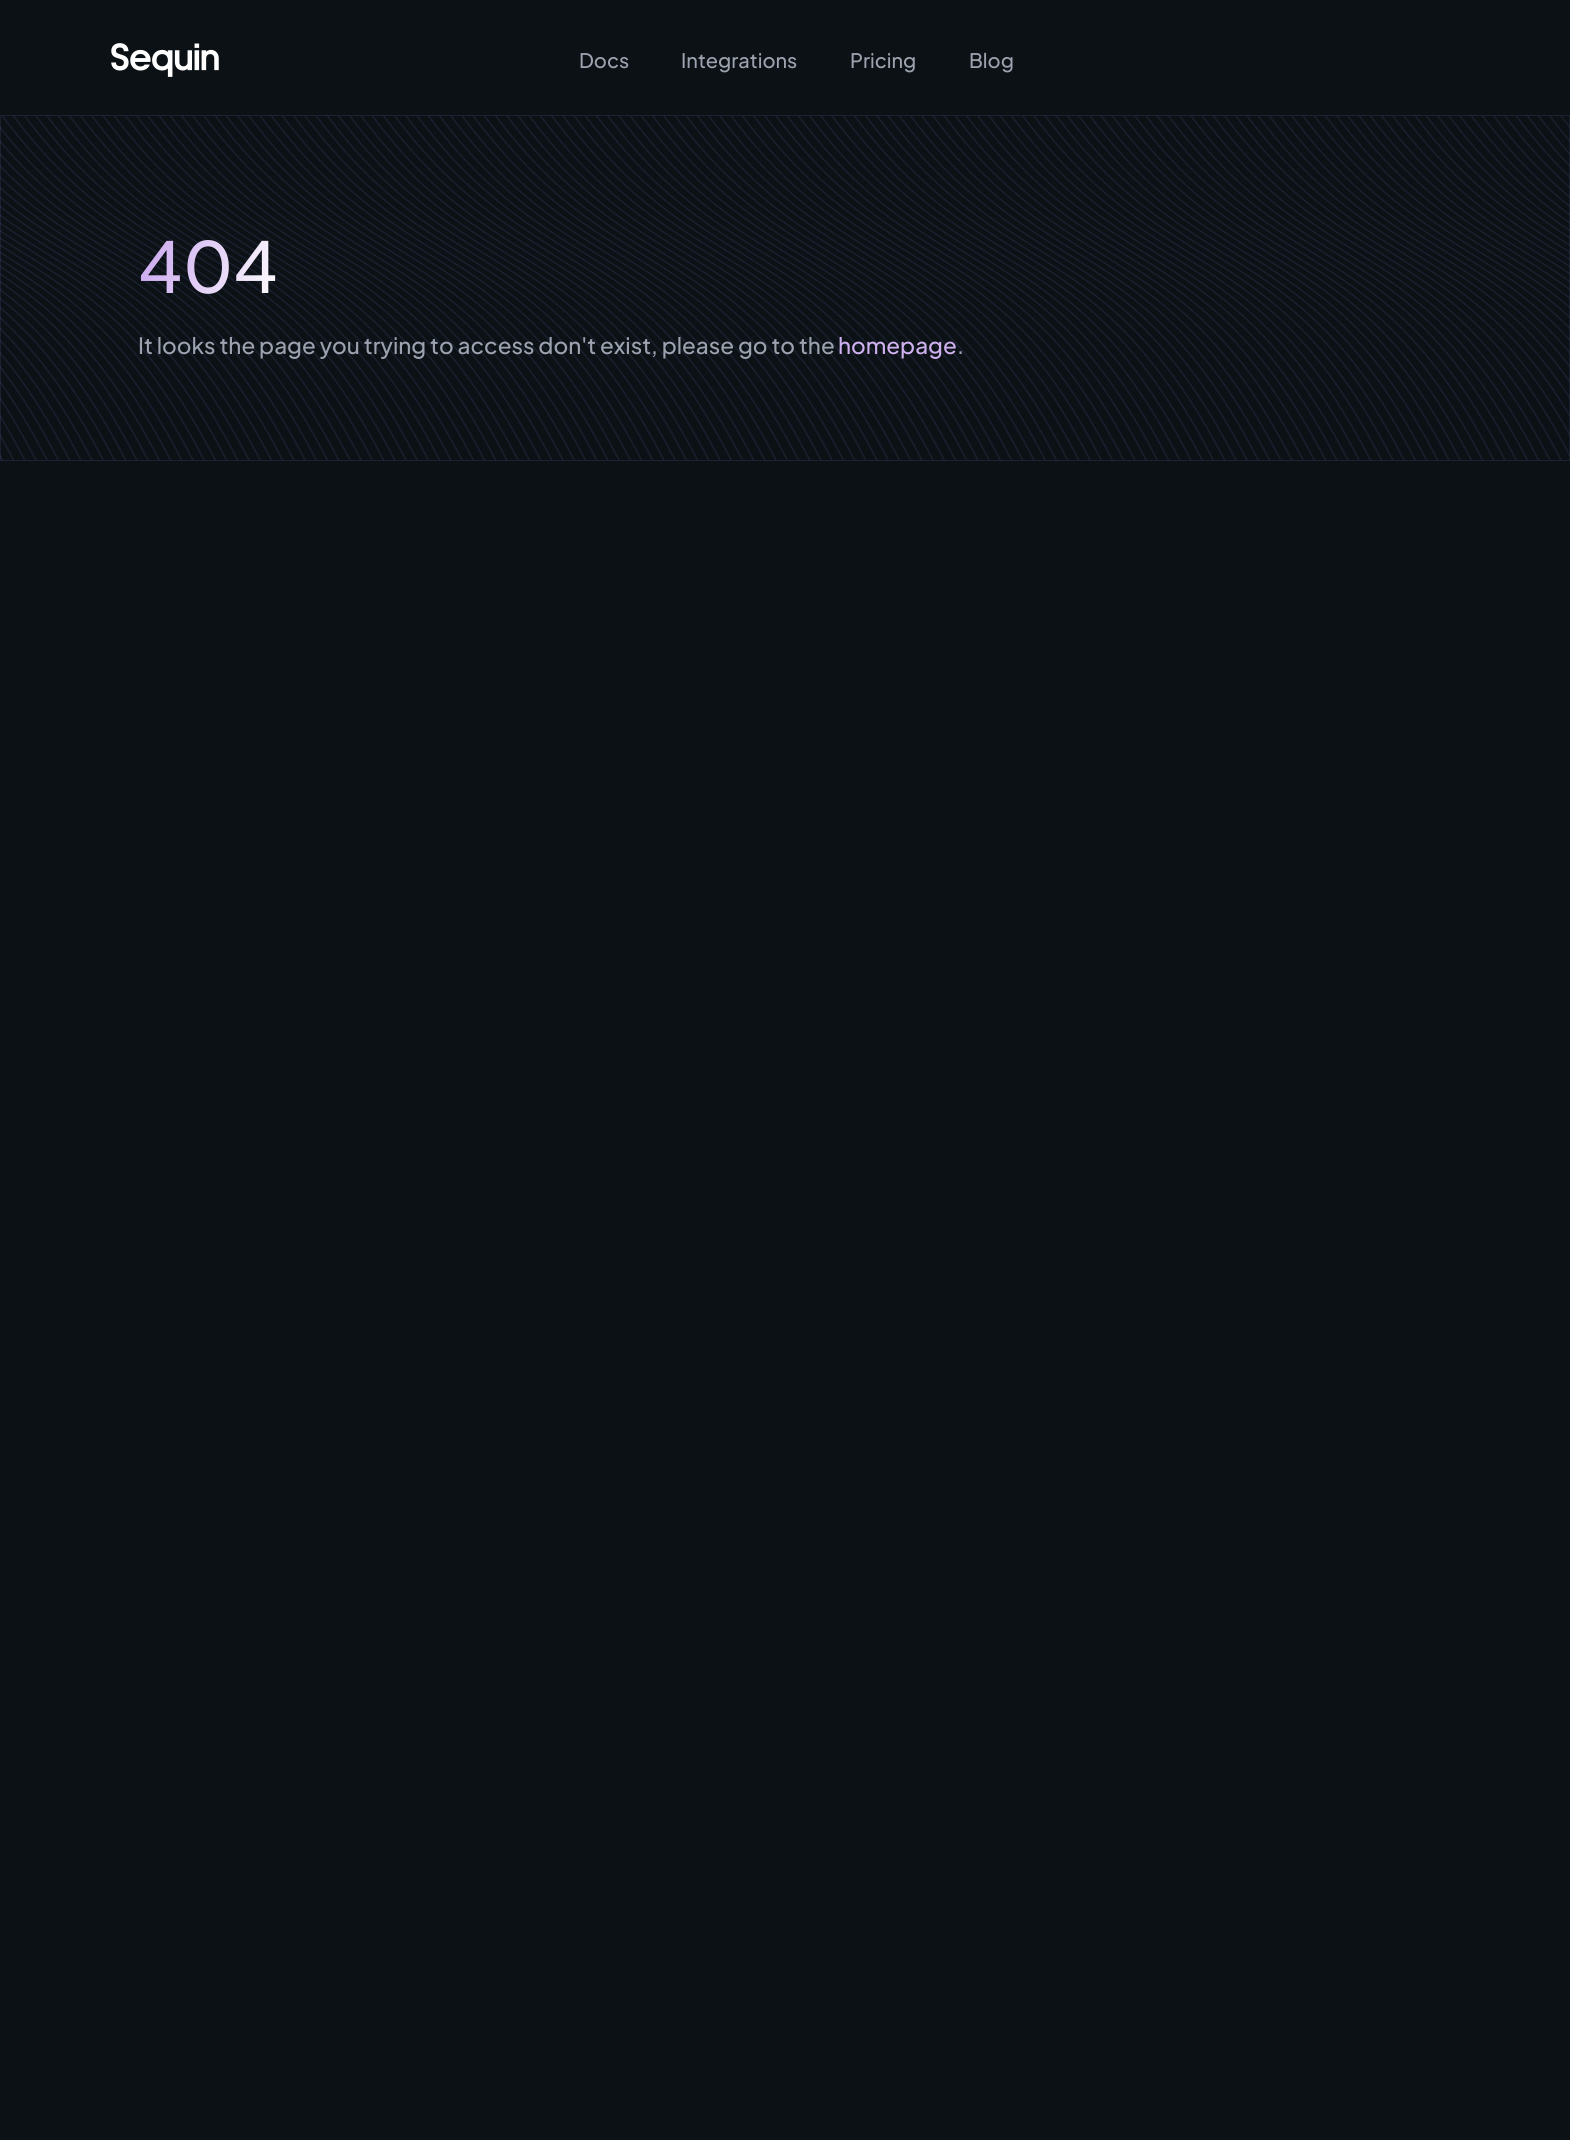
import math
import cairo

surface = cairo.ImageSurface(cairo.FORMAT_RGB24, 1570, 2140)
cr = cairo.Context(surface)
options = cairo.FontOptions()
options.set_hint_metrics(cairo.HINT_METRICS_OFF)
options.set_hint_style(cairo.HINT_STYLE_NONE)
cr.set_font_options(options)
cr.set_miter_limit(4)


def rgb(code):
    cr.set_source_rgb(*(v / 255 for v in bytes.fromhex(code[-6:])))


def image(path, x, y, w, h):
    cr.save()
    cr.set_source_surface(cairo.ImageSurface.create_from_png(path), x, y)
    cr.rectangle(x, y, w, h)
    cr.fill()
    cr.restore()


rgb("#0c1116")
cr.paint()
image("img/1.png", 111, 43, 108, 34)
rgb("#1c2231")
cr.rectangle(0, 115, 1570, 1)
cr.fill()
cr.rectangle(0, 460, 1570, 1)
cr.fill()
image("img/2.png", 0, 116, 1570, 344)
cr.select_font_face("Plus Jakarta Sans Medium")
cr.set_font_size(20)
rgb("#9ca3af")
for x, y, s in [
    (579, 68, "Docs"),
    (681, 68, "Integrations"),
    (850, 68, "Pricing"),
    (969, 68, "Blog"),
]:
    cr.move_to(x, y)
    cr.show_text(s)
cr.set_font_size(70)
gradient = cairo.LinearGradient(130, 237, 285, 291)
gradient.add_color_stop_rgba(0, 0.773, 0.627, 0.929, 1)
gradient.add_color_stop_rgba(1, 1, 1, 1, 1)
cr.set_source(gradient)
cr.move_to(138, 293)
cr.show_text("404")
cr.set_font_size(22.5)
rgb("#9ca3af")
cr.move_to(138, 354)
cr.show_text("It looks the page you trying to access don't exist, please go to the")
rgb("#cfb1f0")
cr.move_to(838, 354)
cr.show_text("homepage")
rgb("#9ca3af")
cr.move_to(957, 354)
cr.show_text(".")
surface.write_to_png("page.png")
